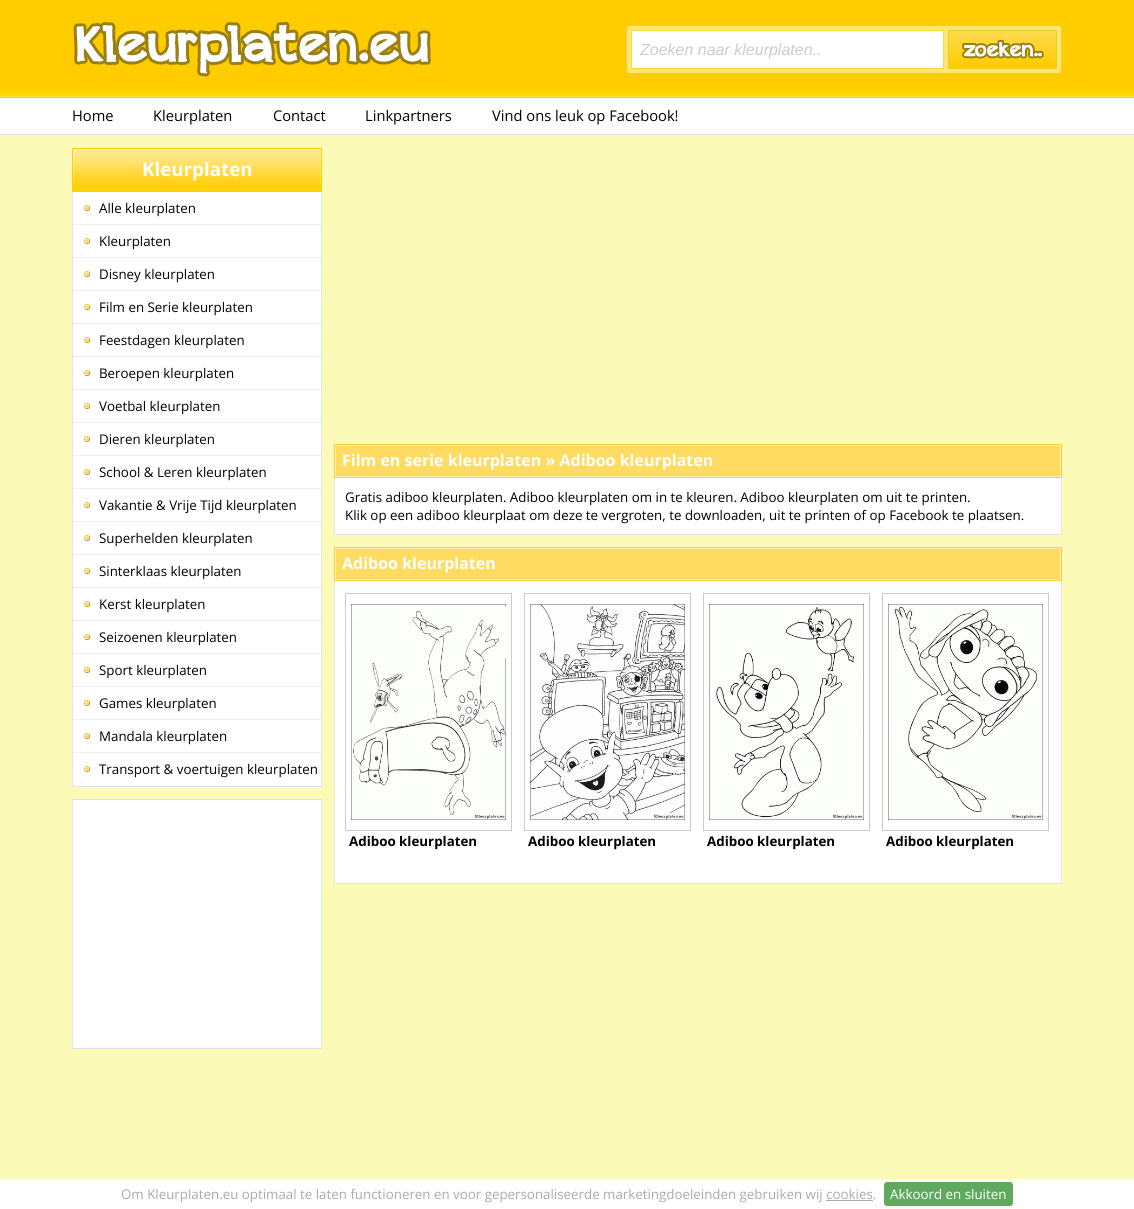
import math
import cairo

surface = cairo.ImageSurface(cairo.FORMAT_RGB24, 1134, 1209)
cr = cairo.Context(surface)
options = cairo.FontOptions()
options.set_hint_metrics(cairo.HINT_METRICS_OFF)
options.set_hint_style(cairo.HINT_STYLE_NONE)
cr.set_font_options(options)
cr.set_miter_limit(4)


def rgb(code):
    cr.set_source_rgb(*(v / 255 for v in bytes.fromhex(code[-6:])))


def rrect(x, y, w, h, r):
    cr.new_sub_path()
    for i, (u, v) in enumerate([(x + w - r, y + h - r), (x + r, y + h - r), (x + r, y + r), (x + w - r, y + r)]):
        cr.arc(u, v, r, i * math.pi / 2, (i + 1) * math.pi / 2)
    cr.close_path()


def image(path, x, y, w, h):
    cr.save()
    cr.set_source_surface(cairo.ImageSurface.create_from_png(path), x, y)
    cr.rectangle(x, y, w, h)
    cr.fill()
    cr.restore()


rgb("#fbfab7")
cr.paint()
image("img/1.png", 0, 0, 1134, 135)
image("img/2.png", 73, 21, 358, 56)
rgb("#ffe770")
rrect(626.5, 25.5, 435, 48, 3.5)
cr.fill_preserve()
rgb("#ebcd46")
cr.set_line_width(1)
cr.stroke()
rgb("#ffffff")
cr.rectangle(631.5, 30.5, 312, 38)
cr.fill_preserve()
rgb("#ffd93f")
cr.stroke()
image("img/3.png", 948, 30, 109, 39)
image("img/4.png", 72, 148, 250, 44)
for x, y, w, h, color in [
    (73, 192, 248, 594, "#ffffff"),
    (321, 192, 1, 595, "#e3e4e9"),
    (72, 786, 250, 1, "#e3e4e9"),
    (72, 192, 1, 595, "#e3e4e9"),
]:
    rgb(color)
    cr.rectangle(x, y, w, h)
    cr.fill()
image("img/5.png", 84, 205, 6, 6)
rgb("#efefef")
cr.rectangle(73, 224, 248, 1)
cr.fill()
image("img/5.png", 84, 238, 6, 6)
cr.rectangle(73, 257, 248, 1)
cr.fill()
image("img/5.png", 84, 271, 6, 6)
cr.rectangle(73, 290, 248, 1)
cr.fill()
image("img/5.png", 84, 304, 6, 6)
cr.rectangle(73, 323, 248, 1)
cr.fill()
image("img/5.png", 84, 337, 6, 6)
cr.rectangle(73, 356, 248, 1)
cr.fill()
image("img/5.png", 84, 370, 6, 6)
cr.rectangle(73, 389, 248, 1)
cr.fill()
image("img/5.png", 84, 403, 6, 6)
cr.rectangle(73, 422, 248, 1)
cr.fill()
image("img/5.png", 84, 436, 6, 6)
cr.rectangle(73, 455, 248, 1)
cr.fill()
image("img/5.png", 84, 469, 6, 6)
cr.rectangle(73, 488, 248, 1)
cr.fill()
image("img/5.png", 84, 502, 6, 6)
cr.rectangle(73, 521, 248, 1)
cr.fill()
image("img/5.png", 84, 535, 6, 6)
cr.rectangle(73, 554, 248, 1)
cr.fill()
image("img/5.png", 84, 568, 6, 6)
cr.rectangle(73, 587, 248, 1)
cr.fill()
image("img/5.png", 84, 601, 6, 6)
cr.rectangle(73, 620, 248, 1)
cr.fill()
image("img/5.png", 84, 634, 6, 6)
cr.rectangle(73, 653, 248, 1)
cr.fill()
image("img/5.png", 84, 667, 6, 6)
cr.rectangle(73, 686, 248, 1)
cr.fill()
image("img/5.png", 84, 700, 6, 6)
cr.rectangle(73, 719, 248, 1)
cr.fill()
image("img/5.png", 84, 733, 6, 6)
cr.rectangle(73, 752, 248, 1)
cr.fill()
image("img/5.png", 84, 766, 6, 6)
rgb("#ffffff")
cr.rectangle(72.5, 799.5, 249, 249)
cr.fill_preserve()
rgb("#e3e4e9")
cr.stroke()
cr.rectangle(335, 445, 726, 32)
rgb("#ffcd3a")
cr.set_line_width(2)
cr.stroke()
cr.rectangle(335.5, 445.5, 725, 31)
rgb("#fff1b7")
cr.set_line_width(1)
cr.stroke()
for x, y, w, h, color in [
    (336, 446, 724, 30, "#ffdc61"),
    (335, 478, 726, 56, "#ffffff"),
    (1061, 478, 1, 57, "#e3e4e9"),
    (334, 534, 728, 1, "#e3e4e9"),
    (334, 478, 1, 57, "#e3e4e9"),
]:
    rgb(color)
    cr.rectangle(x, y, w, h)
    cr.fill()
cr.rectangle(335, 548, 726, 32)
rgb("#ffcd3a")
cr.set_line_width(2)
cr.stroke()
cr.rectangle(335.5, 548.5, 725, 31)
rgb("#fff1b7")
cr.set_line_width(1)
cr.stroke()
for x, y, w, h, color in [
    (336, 549, 724, 30, "#ffdc61"),
    (335, 581, 726, 302, "#ffffff"),
    (1061, 581, 1, 303, "#e3e4e9"),
    (334, 883, 728, 1, "#e3e4e9"),
    (334, 581, 1, 303, "#e3e4e9"),
]:
    rgb(color)
    cr.rectangle(x, y, w, h)
    cr.fill()
cr.rectangle(345.5, 593.5, 166, 237)
rgb("#cccccc")
cr.stroke()
image("img/6.png", 351, 604, 155, 216)
cr.rectangle(524.5, 593.5, 166, 237)
cr.stroke()
image("img/7.png", 530, 604, 155, 216)
cr.rectangle(703.5, 593.5, 166, 237)
cr.stroke()
image("img/8.png", 709, 604, 155, 216)
cr.rectangle(882.5, 593.5, 166, 237)
cr.stroke()
image("img/9.png", 888, 604, 155, 216)
rgb("#ffffff")
cr.rectangle(0, 1179, 1134, 30)
cr.fill()
rgb("#60aa60")
rrect(884, 1182, 129, 24, 3)
cr.fill()
rgb("#aaaaaa")
cr.rectangle(826, 1200, 47, 1)
cr.fill()
cr.select_font_face("Liberation Sans", cairo.FONT_SLANT_ITALIC)
cr.set_font_size(16)
rgb("#cccccc")
cr.move_to(640, 55)
cr.show_text("Zoeken naar kleurplaten..")
cr.select_font_face("Open Sans")
cr.set_font_size(14.7)
rgb("#000000")
for x, y, s in [
    (72, 121, "Home"),
    (153, 121, "Kleurplaten"),
    (273, 121, "Contact"),
    (365, 121, "Linkpartners"),
    (492, 121, "Vind ons leuk op Facebook!"),
]:
    cr.move_to(x, y)
    cr.show_text(s)
cr.select_font_face("Open Sans", cairo.FONT_SLANT_NORMAL, cairo.FONT_WEIGHT_BOLD)
cr.set_font_size(18.75)
rgb("#ffffff")
cr.move_to(142, 176)
cr.show_text("Kleurplaten")
cr.select_font_face("Open Sans")
cr.set_font_size(13.33)
rgb("#000000")
for x, y, s in [
    (99, 213, "Alle kleurplaten"),
    (99, 246, "Kleurplaten"),
    (99, 279, "Disney kleurplaten"),
    (99, 312, "Film en Serie kleurplaten"),
    (99, 345, "Feestdagen kleurplaten"),
    (99, 378, "Beroepen kleurplaten"),
    (99, 411, "Voetbal kleurplaten"),
    (99, 444, "Dieren kleurplaten"),
    (99, 477, "School & Leren kleurplaten"),
    (99, 510, "Vakantie & Vrije Tijd kleurplaten"),
    (99, 543, "Superhelden kleurplaten"),
    (99, 576, "Sinterklaas kleurplaten"),
    (99, 609, "Kerst kleurplaten"),
    (99, 642, "Seizoenen kleurplaten"),
    (99, 675, "Sport kleurplaten"),
    (99, 708, "Games kleurplaten"),
    (99, 741, "Mandala kleurplaten"),
    (99, 774, "Transport & voertuigen kleurplaten"),
]:
    cr.move_to(x, y)
    cr.show_text(s)
cr.select_font_face("Open Sans", cairo.FONT_SLANT_NORMAL, cairo.FONT_WEIGHT_BOLD)
cr.set_font_size(16)
rgb("#ffffff")
cr.move_to(342, 466)
cr.show_text("Film en serie kleurplaten » Adiboo kleurplaten")
cr.select_font_face("Open Sans")
cr.set_font_size(13.33)
rgb("#000000")
cr.move_to(345, 502)
cr.show_text("Gratis adiboo kleurplaten. Adiboo kleurplaten om in te kleuren. Adiboo kleurplaten om uit te printen.")
cr.move_to(345, 520)
cr.show_text("Klik op een adiboo kleurplaat om deze te vergroten, te downloaden, uit te printen of op Facebook te plaatsen.")
cr.select_font_face("Open Sans", cairo.FONT_SLANT_NORMAL, cairo.FONT_WEIGHT_BOLD)
cr.set_font_size(16)
rgb("#ffffff")
cr.move_to(342, 569)
cr.show_text("Adiboo kleurplaten")
cr.set_font_size(13.33)
rgb("#000000")
for x, y, s in [
    (349, 846, "Adiboo kleurplaten"),
    (528, 846, "Adiboo kleurplaten"),
    (707, 846, "Adiboo kleurplaten"),
    (886, 846, "Adiboo kleurplaten"),
]:
    cr.move_to(x, y)
    cr.show_text(s)
cr.select_font_face("Open Sans")
rgb("#aaaaaa")
cr.move_to(121, 1199)
cr.show_text("Om Kleurplaten.eu optimaal te laten functioneren en voor gepersonaliseerde marketingdoeleinden gebruiken wij cookies.")
rgb("#ffffff")
cr.move_to(890, 1199)
cr.show_text("Akkoord en sluiten")
surface.write_to_png("page.png")
